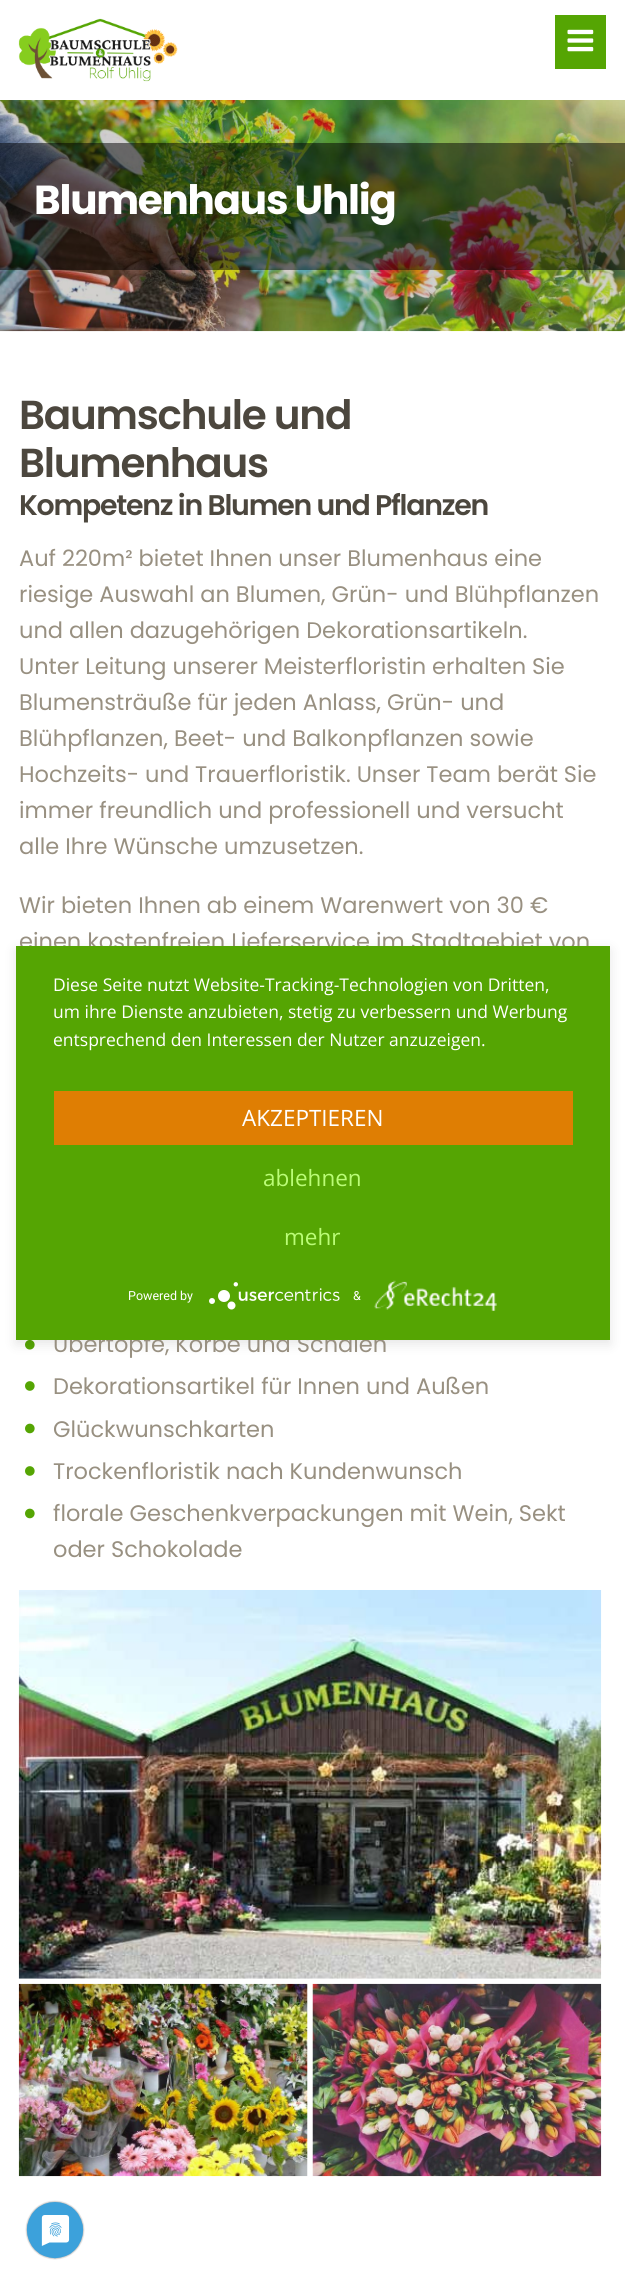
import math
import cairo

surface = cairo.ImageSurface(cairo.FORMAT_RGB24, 625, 2284)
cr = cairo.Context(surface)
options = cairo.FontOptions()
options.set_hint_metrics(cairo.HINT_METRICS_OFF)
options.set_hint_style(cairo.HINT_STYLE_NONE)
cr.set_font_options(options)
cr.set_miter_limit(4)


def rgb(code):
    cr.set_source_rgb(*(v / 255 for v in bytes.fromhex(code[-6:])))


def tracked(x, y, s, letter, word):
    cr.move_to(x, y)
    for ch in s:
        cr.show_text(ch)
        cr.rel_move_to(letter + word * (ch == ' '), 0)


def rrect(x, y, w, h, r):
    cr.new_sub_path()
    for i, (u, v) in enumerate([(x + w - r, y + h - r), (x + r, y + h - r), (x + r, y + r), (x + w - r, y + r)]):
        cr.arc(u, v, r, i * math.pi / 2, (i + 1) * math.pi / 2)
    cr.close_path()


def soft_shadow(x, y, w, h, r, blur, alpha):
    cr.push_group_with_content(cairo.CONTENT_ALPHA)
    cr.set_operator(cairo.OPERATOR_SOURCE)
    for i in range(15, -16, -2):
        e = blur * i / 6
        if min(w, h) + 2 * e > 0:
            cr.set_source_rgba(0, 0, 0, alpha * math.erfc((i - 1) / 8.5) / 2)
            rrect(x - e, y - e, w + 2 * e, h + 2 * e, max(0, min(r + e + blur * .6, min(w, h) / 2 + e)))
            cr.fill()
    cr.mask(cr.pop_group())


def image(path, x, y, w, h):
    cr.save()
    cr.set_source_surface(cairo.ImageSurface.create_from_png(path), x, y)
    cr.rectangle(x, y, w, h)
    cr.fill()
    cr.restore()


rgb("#ffffff")
cr.paint()
image("img/1.png", 18, 18, 160, 64)
rgb("#55a503")
cr.rectangle(555, 15, 51, 54)
cr.fill()
image("img/2.png", 567, 29, 27, 23)
image("img/3.png", 0, 100, 625, 232)
cr.set_source_rgba(0, 0, 0, 0.5)
cr.rectangle(0, 143, 625, 127)
cr.fill()
image("img/4.png", 25, 1340, 10, 10)
image("img/5.png", 25, 1381, 10, 10)
image("img/6.png", 25, 1423, 10, 11)
image("img/5.png", 25, 1466, 10, 10)
image("img/6.png", 25, 1508, 10, 11)
image("img/7.png", 18, 1590, 584, 389)
image("img/8.png", 18, 1983, 290, 194)
image("img/9.png", 312, 1983, 290, 194)
rgb("#000000")
soft_shadow(16, 950, 594, 394, 0, 6, 0.1)
image("img/12.png", 25, 2200, 60, 60)
cr.select_font_face("Poppins", cairo.FONT_SLANT_NORMAL, cairo.FONT_WEIGHT_BOLD)
cr.set_font_size(40.5)
rgb("#ffffff")
tracked(34, 214, "Blumenhaus Uhlig", -1.25, 0)
cr.select_font_face("Poppins SemiBold")
rgb("#4c473e")
tracked(19, 429, "Baumschule und", -1.25, 0)
tracked(19, 477, "Blumenhaus", -1.25, 0)
cr.set_font_size(28.4)
tracked(19, 515, "Kompetenz in Blumen und Pflanzen", -1.25, 0)
cr.select_font_face("Poppins")
cr.set_font_size(22.5)
rgb("#989081")
for x, y, s in [
    (19, 566, "Auf 220m² bietet Ihnen unser Blumenhaus eine"),
    (19, 602, "riesige Auswahl an Blumen, Grün- und Blühpflanzen"),
    (19, 638, "und allen dazugehörigen Dekorationsartikeln."),
    (19, 674, "Unter Leitung unserer Meisterfloristin erhalten Sie"),
    (19, 710, "Blumensträuße für jeden Anlass, Grün- und"),
    (19, 746, "Blühpflanzen, Beet- und Balkonpflanzen sowie"),
    (19, 782, "Hochzeits- und Trauerfloristik. Unser Team berät Sie"),
    (19, 818, "immer freundlich und professionell und versucht"),
    (19, 854, "alle Ihre Wünsche umzusetzen."),
    (19, 913, "Wir bieten Ihnen ab einem Warenwert von 30 €"),
    (19, 949, "einen kostenfreien Lieferservice im Stadtgebiet von"),
    (53, 1352, "Übertöpfe, Körbe und Schalen"),
    (53, 1394, "Dekorationsartikel für Innen und Außen"),
    (53, 1437, "Glückwunschkarten"),
    (53, 1479, "Trockenfloristik nach Kundenwunsch"),
    (53, 1521, "florale Geschenkverpackungen mit Wein, Sekt"),
    (53, 1557, "oder Schokolade"),
]:
    cr.move_to(x, y)
    cr.show_text(s)
rgb("#55a503")
cr.rectangle(16, 946, 594, 394)
cr.fill()
cr.select_font_face("Open Sans")
cr.set_font_size(17.5)
rgb("#ffffff")
for x, y, s in [
    (53, 991, "Diese Seite nutzt Website-Tracking-Technologien von Dritten,"),
    (53, 1018, "um ihre Dienste anzubieten, stetig zu verbessern und Werbung"),
    (53, 1046, "entsprechend den Interessen der Nutzer anzuzeigen."),
]:
    cr.move_to(x, y)
    cr.show_text(s)
rgb("#df7e03")
cr.rectangle(54, 1091, 519, 54)
cr.fill()
cr.set_font_size(22.5)
rgb("#ffffff")
cr.move_to(242, 1126)
cr.show_text("AKZEPTIEREN")
rgb("#bbfd77")
cr.move_to(263, 1186)
cr.show_text("ablehnen")
cr.move_to(284, 1245)
cr.show_text("mehr")
cr.select_font_face("Roboto")
cr.set_font_size(12.5)
rgb("#ffffff")
cr.move_to(128, 1300)
cr.show_text("Powered by")
image("img/10.png", 209, 1282, 131, 28)
cr.move_to(353, 1300)
cr.show_text("&")
image("img/11.png", 374, 1280, 123, 31)
surface.write_to_png("page.png")
